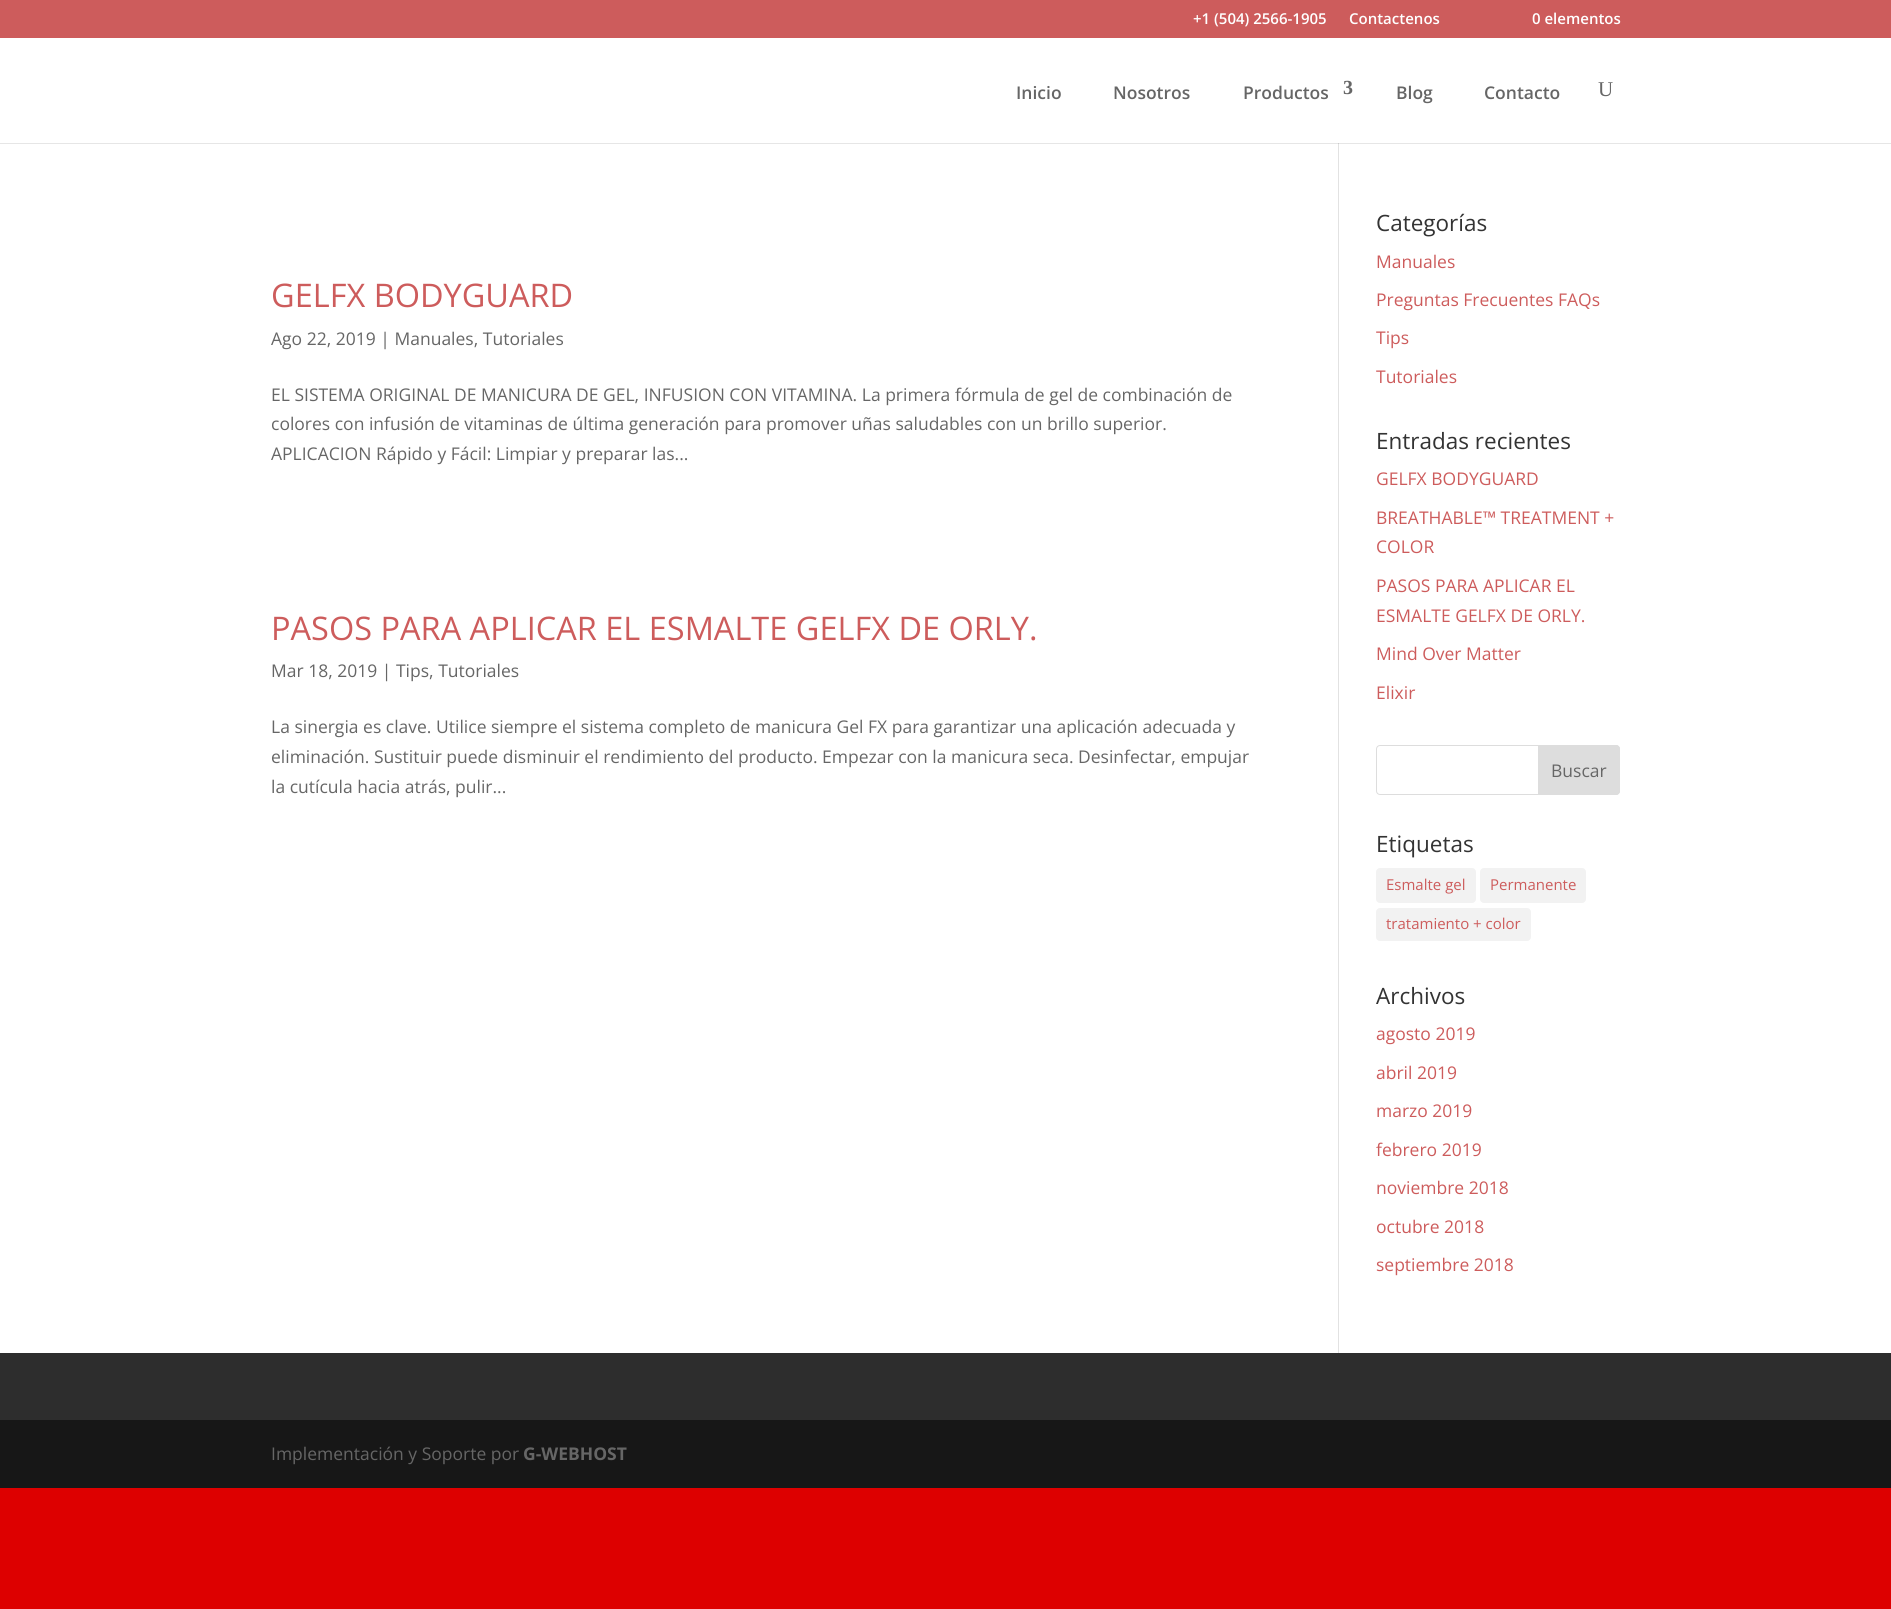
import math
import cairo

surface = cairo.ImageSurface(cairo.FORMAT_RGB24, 1891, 1609)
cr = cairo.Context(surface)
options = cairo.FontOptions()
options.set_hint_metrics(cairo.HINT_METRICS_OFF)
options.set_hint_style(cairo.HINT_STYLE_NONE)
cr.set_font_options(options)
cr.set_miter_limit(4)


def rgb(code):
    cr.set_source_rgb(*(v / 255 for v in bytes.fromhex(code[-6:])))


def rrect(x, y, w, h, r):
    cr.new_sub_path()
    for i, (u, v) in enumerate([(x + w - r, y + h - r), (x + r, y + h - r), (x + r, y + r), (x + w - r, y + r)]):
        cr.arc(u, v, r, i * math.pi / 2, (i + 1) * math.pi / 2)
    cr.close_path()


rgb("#dd0000")
cr.paint()
for x, y, w, h, color in [
    (0, 0, 1891, 38, "#cd5c5c"),
    (0, 144, 1891, 1209, "#ffffff"),
    (0, 143, 1891, 1, "#e6e6e6"),
    (1338, 139, 1, 1214, "#e2e2e2"),
    (1338, 142, 1, 2, "#cbcbcb"),
    (0, 38, 1891, 105, "#ffffff"),
]:
    rgb(color)
    cr.rectangle(x, y, w, h)
    cr.fill()
rrect(1376.5, 745.5, 243, 49, 3.5)
rgb("#dddddd")
cr.set_line_width(1)
cr.stroke()
cr.new_path()
cr.move_to(1538.5, 745.5)
cr.line_to(1616, 745.5)
cr.curve_to(1618, 745.5, 1619.5, 747, 1619.5, 749)
cr.line_to(1619.5, 791)
cr.curve_to(1619.5, 793, 1618, 794.5, 1616, 794.5)
cr.line_to(1538.5, 794.5)
cr.close_path()
cr.fill_preserve()
cr.stroke()
rgb("#f2f2f2")
rrect(1376, 868, 100, 35, 4)
cr.fill()
rrect(1480, 868, 106, 35, 4)
cr.fill()
rrect(1376, 908, 155, 33, 4)
cr.fill()
rgb("#2d2d2d")
cr.rectangle(0, 1353, 1891, 67)
cr.fill()
rgb("#171717")
cr.rectangle(0, 1420, 1891, 68)
cr.fill()
cr.select_font_face("Open Sans SemiBold")
cr.set_font_size(15)
rgb("#ffffff")
for x, y, s in [
    (1193, 24, "+1 (504) 2566-1905"),
    (1349, 24, "Contactenos"),
    (1532, 24, "0 elementos"),
]:
    cr.move_to(x, y)
    cr.show_text(s)
cr.set_font_size(17.5)
rgb("#666666")
for x, y, s in [
    (1016, 99, "Inicio"),
    (1113, 99, "Nosotros"),
    (1243, 99, "Productos"),
]:
    cr.move_to(x, y)
    cr.show_text(s)
cr.select_font_face("Liberation Serif", cairo.FONT_SLANT_NORMAL, cairo.FONT_WEIGHT_BOLD)
cr.set_font_size(20)
cr.move_to(1343, 94)
cr.show_text("3")
cr.select_font_face("Open Sans SemiBold")
cr.set_font_size(17.5)
cr.move_to(1396, 99)
cr.show_text("Blog")
cr.move_to(1484, 99)
cr.show_text("Contacto")
cr.select_font_face("Liberation Serif")
cr.set_font_size(21)
cr.move_to(1598, 96)
cr.show_text("U")
cr.select_font_face("Open Sans")
cr.set_font_size(32.5)
rgb("#cd5c5c")
cr.move_to(271, 307)
cr.show_text("GELFX BODYGUARD")
cr.set_font_size(17.5)
rgb("#666666")
for x, y, s in [
    (271, 345, "Ago 22, 2019 | Manuales, Tutoriales"),
    (271, 401, "EL SISTEMA ORIGINAL DE MANICURA DE GEL, INFUSION CON VITAMINA. La primera fórmula de gel de combinación de"),
    (271, 430, "colores con infusión de vitaminas de última generación para promover uñas saludables con un brillo superior."),
    (271, 460, "APLICACION Rápido y Fácil: Limpiar y preparar las..."),
]:
    cr.move_to(x, y)
    cr.show_text(s)
cr.set_font_size(32.5)
rgb("#cd5c5c")
cr.move_to(271, 640)
cr.show_text("PASOS PARA APLICAR EL ESMALTE GELFX DE ORLY.")
cr.set_font_size(17.5)
rgb("#666666")
for x, y, s in [
    (271, 677, "Mar 18, 2019 | Tips, Tutoriales"),
    (271, 733, "La sinergia es clave. Utilice siempre el sistema completo de manicura Gel FX para garantizar una aplicación adecuada y"),
    (271, 763, "eliminación. Sustituir puede disminuir el rendimiento del producto. Empezar con la manicura seca. Desinfectar, empujar"),
    (271, 793, "la cutícula hacia atrás, pulir..."),
]:
    cr.move_to(x, y)
    cr.show_text(s)
cr.set_font_size(22.5)
rgb("#333333")
cr.move_to(1376, 231)
cr.show_text("Categorías")
cr.set_font_size(17.5)
rgb("#cd5c5c")
for x, y, s in [
    (1376, 268, "Manuales"),
    (1376, 306, "Preguntas Frecuentes FAQs"),
    (1376, 344, "Tips"),
    (1376, 383, "Tutoriales"),
]:
    cr.move_to(x, y)
    cr.show_text(s)
cr.set_font_size(22.5)
rgb("#333333")
cr.move_to(1376, 449)
cr.show_text("Entradas recientes")
cr.set_font_size(17.5)
rgb("#cd5c5c")
for x, y, s in [
    (1376, 485, "GELFX BODYGUARD"),
    (1376, 524, "BREATHABLE™ TREATMENT +"),
    (1376, 553, "COLOR"),
    (1376, 592, "PASOS PARA APLICAR EL"),
    (1376, 622, "ESMALTE GELFX DE ORLY."),
    (1376, 660, "Mind Over Matter"),
    (1376, 699, "Elixir"),
]:
    cr.move_to(x, y)
    cr.show_text(s)
rgb("#666666")
cr.move_to(1551, 777)
cr.show_text("Buscar")
cr.set_font_size(22.5)
rgb("#333333")
cr.move_to(1376, 852)
cr.show_text("Etiquetas")
cr.set_font_size(15)
rgb("#cd5c5c")
for x, y, s in [
    (1386, 890, "Esmalte gel"),
    (1490, 890, "Permanente"),
    (1386, 929, "tratamiento + color"),
]:
    cr.move_to(x, y)
    cr.show_text(s)
cr.set_font_size(22.5)
rgb("#333333")
cr.move_to(1376, 1004)
cr.show_text("Archivos")
cr.set_font_size(17.5)
rgb("#cd5c5c")
for x, y, s in [
    (1376, 1040, "agosto 2019"),
    (1376, 1079, "abril 2019"),
    (1376, 1117, "marzo 2019"),
    (1376, 1156, "febrero 2019"),
    (1376, 1194, "noviembre 2018"),
    (1376, 1233, "octubre 2018"),
    (1376, 1271, "septiembre 2018"),
]:
    cr.move_to(x, y)
    cr.show_text(s)
rgb("#666666")
cr.move_to(271, 1460)
cr.show_text("Implementación y Soporte por")
cr.select_font_face("Open Sans", cairo.FONT_SLANT_NORMAL, cairo.FONT_WEIGHT_BOLD)
cr.move_to(523, 1460)
cr.show_text("G-WEBHOST")
surface.write_to_png("page.png")
